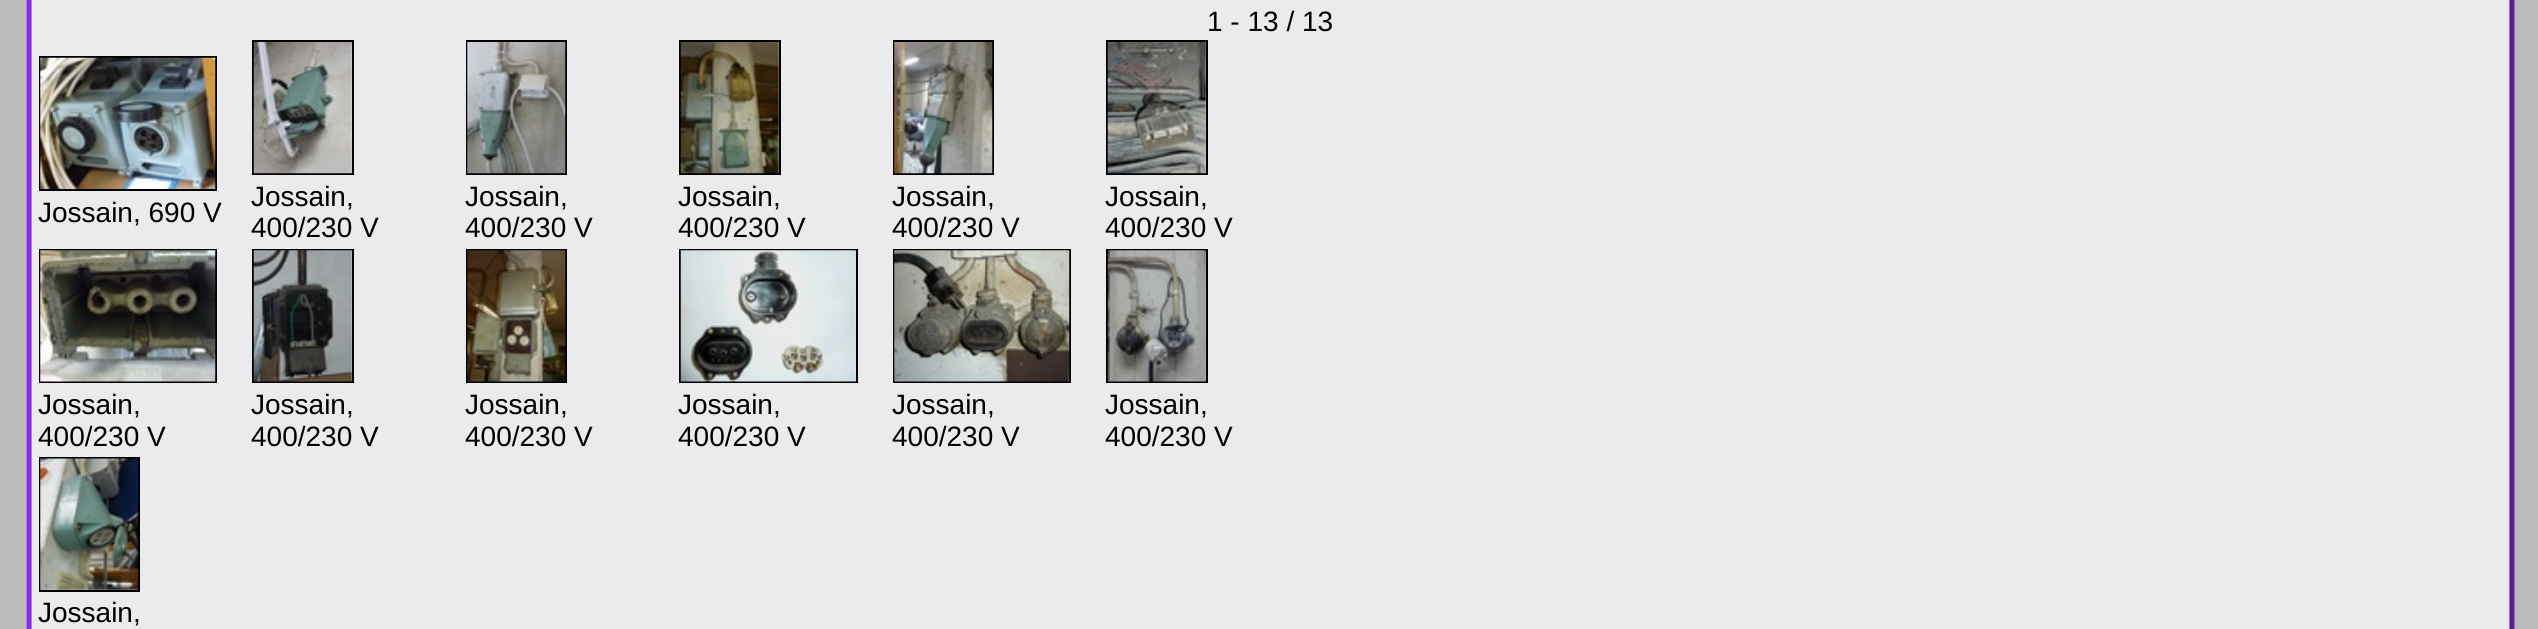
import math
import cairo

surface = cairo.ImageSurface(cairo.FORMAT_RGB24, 2538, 629)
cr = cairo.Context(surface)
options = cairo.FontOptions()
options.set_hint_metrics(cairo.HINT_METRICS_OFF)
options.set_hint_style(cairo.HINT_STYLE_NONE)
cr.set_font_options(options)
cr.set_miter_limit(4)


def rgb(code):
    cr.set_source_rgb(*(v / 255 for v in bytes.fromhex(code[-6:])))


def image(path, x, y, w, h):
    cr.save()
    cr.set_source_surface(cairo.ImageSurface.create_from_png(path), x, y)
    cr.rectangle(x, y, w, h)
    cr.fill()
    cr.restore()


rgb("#bbbbbb")
cr.paint()
rgb("#ebeaed")
cr.rectangle(26, 0, 2489, 629)
cr.fill()
cr.new_path()
cr.move_to(2505, -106)
cr.curve_to(2509.5, -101.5, 2512, -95.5, 2512, -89)
cr.line_to(2512, 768)
cr.curve_to(2512, 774.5, 2509.5, 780.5, 2505, 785)
cr.curve_to(2501, 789.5, 2495, 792, 2488.5, 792)
cr.line_to(52.5, 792)
cr.curve_to(46, 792, 40, 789.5, 36, 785)
rgb("#5c1d97")
cr.set_line_width(5.2)
cr.stroke()
cr.new_path()
cr.move_to(36, 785)
cr.curve_to(31.5, 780.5, 29, 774.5, 29, 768)
cr.line_to(29, -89)
cr.curve_to(29, -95.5, 31.5, -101.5, 36, -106)
cr.curve_to(40, -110.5, 46, -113, 52.5, -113)
cr.line_to(2488.5, -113)
cr.curve_to(2495, -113, 2501, -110.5, 2505, -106)
rgb("#8a2be2")
cr.stroke()
cr.rectangle(40, 57, 176, 133)
rgb("#000000")
cr.set_line_width(2)
cr.stroke()
image("img/1.png", 40, 57, 176, 132)
cr.rectangle(253, 41, 100, 133)
cr.stroke()
image("img/2.png", 253, 42, 99, 132)
cr.rectangle(467, 41, 99, 133)
cr.stroke()
image("img/3.png", 467, 42, 99, 132)
cr.rectangle(680, 41, 100, 133)
cr.stroke()
image("img/4.png", 680, 42, 99, 132)
cr.rectangle(894, 41, 99, 133)
cr.stroke()
image("img/5.png", 894, 42, 99, 132)
cr.rectangle(1107, 41, 100, 133)
cr.stroke()
image("img/6.png", 1107, 42, 99, 132)
cr.rectangle(40, 250, 176, 132)
cr.stroke()
image("img/7.png", 40, 250, 176, 132)
cr.rectangle(253, 250, 100, 132)
cr.stroke()
image("img/8.png", 253, 250, 99, 132)
cr.rectangle(467, 250, 99, 132)
cr.stroke()
image("img/9.png", 467, 250, 99, 132)
cr.rectangle(680, 250, 177, 132)
cr.stroke()
image("img/10.png", 680, 250, 176, 132)
cr.rectangle(894, 250, 176, 132)
cr.stroke()
image("img/11.png", 894, 250, 176, 132)
cr.rectangle(1107, 250, 100, 132)
cr.stroke()
image("img/12.png", 1107, 250, 99, 132)
cr.rectangle(40, 458, 99, 133)
cr.stroke()
image("img/13.png", 40, 458, 99, 132)
cr.select_font_face("Liberation Sans")
cr.set_font_size(28)
for x, y, s in [
    (1207, 31, "1 - 13 / 13"),
    (38, 222, "Jossain, 690 V"),
    (251, 206, "Jossain,"),
    (251, 237, "400/230 V"),
    (465, 206, "Jossain,"),
    (465, 237, "400/230 V"),
    (678, 206, "Jossain,"),
    (678, 237, "400/230 V"),
    (892, 206, "Jossain,"),
    (892, 237, "400/230 V"),
    (1105, 206, "Jossain,"),
    (1105, 237, "400/230 V"),
    (38, 414, "Jossain,"),
    (38, 446, "400/230 V"),
    (251, 414, "Jossain,"),
    (251, 446, "400/230 V"),
    (465, 414, "Jossain,"),
    (465, 446, "400/230 V"),
    (678, 414, "Jossain,"),
    (678, 446, "400/230 V"),
    (892, 414, "Jossain,"),
    (892, 446, "400/230 V"),
    (1105, 414, "Jossain,"),
    (1105, 446, "400/230 V"),
    (38, 622, "Jossain,"),
]:
    cr.move_to(x, y)
    cr.show_text(s)
surface.write_to_png("page.png")
